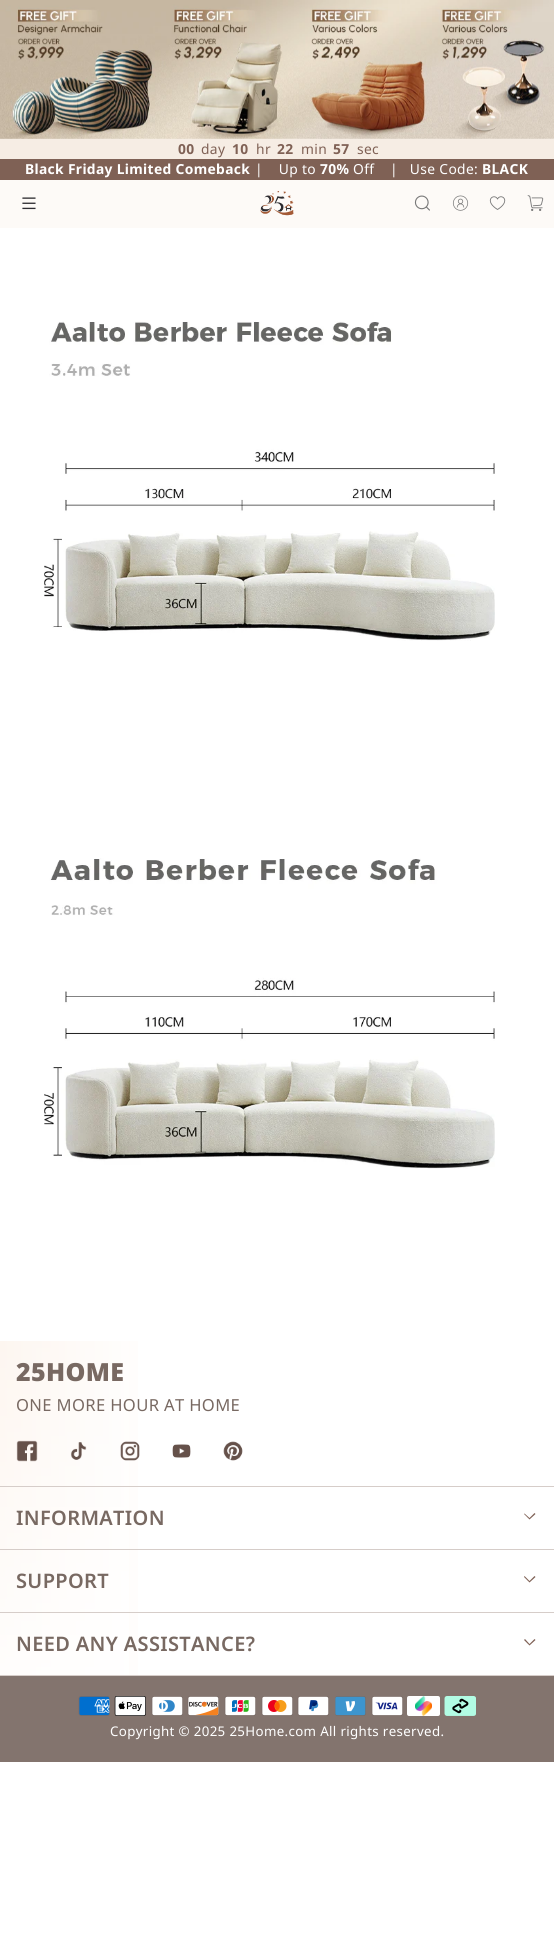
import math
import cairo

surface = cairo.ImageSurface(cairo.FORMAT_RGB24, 554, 1946)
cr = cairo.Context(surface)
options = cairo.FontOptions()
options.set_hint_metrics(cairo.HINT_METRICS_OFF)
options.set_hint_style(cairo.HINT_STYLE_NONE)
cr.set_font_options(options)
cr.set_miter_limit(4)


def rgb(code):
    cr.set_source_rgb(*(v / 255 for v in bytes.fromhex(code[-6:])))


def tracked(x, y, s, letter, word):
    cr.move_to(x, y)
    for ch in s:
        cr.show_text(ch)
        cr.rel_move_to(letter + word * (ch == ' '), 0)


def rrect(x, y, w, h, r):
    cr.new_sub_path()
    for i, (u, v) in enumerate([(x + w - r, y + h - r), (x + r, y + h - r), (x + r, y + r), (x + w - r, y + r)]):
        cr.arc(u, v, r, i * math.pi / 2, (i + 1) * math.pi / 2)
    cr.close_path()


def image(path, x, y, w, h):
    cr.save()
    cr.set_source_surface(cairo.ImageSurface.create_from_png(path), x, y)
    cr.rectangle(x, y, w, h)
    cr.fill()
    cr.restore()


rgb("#ffffff")
cr.paint()
image("img/1.png", 0, 0, 554, 139)
for x, y, w, h, color in [
    (0, 139, 554, 20, "#f6ede4"),
    (0, 159, 554, 21, "#7f6155"),
    (0, 180, 554, 48, "#fdfaf7"),
]:
    rgb(color)
    cr.rectangle(x, y, w, h)
    cr.fill()
image("img/2.png", 22, 197, 14, 13)
image("img/3.png", 260, 191, 34, 25)
image("img/4.png", 414, 195, 16, 16)
image("img/5.png", 452, 195, 17, 16)
image("img/6.png", 489, 196, 17, 14)
image("img/7.png", 527, 195, 17, 16)
image("img/8.png", 44, 321, 451, 320)
image("img/9.png", 44, 858, 451, 311)
gradient = cairo.LinearGradient(0, 1552, 554, 1552)
gradient.add_color_stop_rgba(0, 0.992, 0.957, 0.929, 1)
gradient.add_color_stop_rgba(0.29, 1, 1, 1, 1)
cr.set_source(gradient)
cr.rectangle(0, 1341, 138, 334)
cr.fill()
gradient = cairo.LinearGradient(277, 1762, 277, 1253)
gradient.add_color_stop_rgba(0, 1, 1, 1, 1)
gradient.add_color_stop_rgba(1, 1, 1, 1, 0)
cr.set_source(gradient)
cr.rectangle(0, 1341, 129, 334)
cr.fill()
rgb("#d6cdc9")
cr.rectangle(0, 1486, 554, 1)
cr.fill()
image("img/10.png", 16, 1440, 22, 22)
image("img/11.png", 70, 1442, 17, 18)
image("img/12.png", 120, 1441, 20, 20)
image("img/13.png", 172, 1444, 19, 14)
image("img/14.png", 223, 1441, 20, 20)
cr.rectangle(0, 1549, 554, 1)
cr.fill()
rgb("#7f6155")
cr.new_path()
cr.move_to(524.5, 1513.5)
cr.line_to(524, 1514)
cr.line_to(529.5, 1519.5)
cr.line_to(535.5, 1514)
cr.line_to(534.5, 1513)
cr.line_to(529.5, 1518)
cr.close_path()
cr.fill()
rgb("#d6cdc9")
cr.rectangle(0, 1612, 554, 1)
cr.fill()
rgb("#7f6155")
cr.new_path()
cr.move_to(524.5, 1576)
cr.line_to(524, 1577)
cr.line_to(529.5, 1582.5)
cr.line_to(535.5, 1577)
cr.line_to(534.5, 1576)
cr.line_to(529.5, 1581)
cr.close_path()
cr.fill()
rgb("#d6cdc9")
cr.rectangle(0, 1675, 554, 1)
cr.fill()
rgb("#7f6155")
cr.new_path()
cr.move_to(525, 1639)
cr.line_to(524, 1640)
cr.line_to(529.5, 1645.5)
cr.line_to(535.5, 1640)
cr.line_to(534.5, 1639)
cr.line_to(529.5, 1644)
cr.close_path()
cr.fill()
rgb("#83746e")
cr.rectangle(0, 1676, 554, 86)
cr.fill()
image("img/15.png", 78, 1696, 32, 20)
image("img/16.png", 114, 1696, 32, 20)
image("img/17.png", 151, 1696, 32, 20)
image("img/18.png", 187, 1696, 32, 20)
image("img/19.png", 224, 1696, 32, 20)
image("img/20.png", 261, 1696, 32, 20)
image("img/21.png", 297, 1696, 32, 20)
image("img/22.png", 335, 1696, 31, 20)
image("img/23.png", 371, 1696, 32, 20)
rgb("#ffffff")
rrect(407, 1696, 33, 20, 2)
cr.fill()
image("img/24.png", 415, 1696, 17, 20)
image("img/25.png", 444, 1696, 32, 20)
cr.select_font_face("Noto Sans", cairo.FONT_SLANT_NORMAL, cairo.FONT_WEIGHT_BOLD)
cr.set_font_size(13.8)
rgb("#7f6155")
tracked(178, 154, "00", 0.35, 0)
cr.select_font_face("Noto Sans")
tracked(201, 154, "day", 0.35, 0)
cr.select_font_face("Noto Sans", cairo.FONT_SLANT_NORMAL, cairo.FONT_WEIGHT_BOLD)
tracked(232, 154, "10", 0.35, 0)
cr.select_font_face("Noto Sans")
tracked(256, 154, "hr", 0.35, 0)
cr.select_font_face("Noto Sans", cairo.FONT_SLANT_NORMAL, cairo.FONT_WEIGHT_BOLD)
tracked(277, 154, "22", 0.35, 0)
cr.select_font_face("Noto Sans")
tracked(301, 154, "min", 0.35, 0)
cr.select_font_face("Noto Sans", cairo.FONT_SLANT_NORMAL, cairo.FONT_WEIGHT_BOLD)
tracked(333, 154, "57", 0.35, 0)
cr.select_font_face("Noto Sans")
tracked(357, 154, "sec", 0.35, 0)
cr.select_font_face("Noto Sans", cairo.FONT_SLANT_NORMAL, cairo.FONT_WEIGHT_BOLD)
rgb("#ffffff")
tracked(25, 174, "Black Friday Limited Comeback", 0.35, 0)
cr.select_font_face("Noto Sans")
tracked(255, 174, "|    Up to", 0.35, 0)
cr.select_font_face("Noto Sans", cairo.FONT_SLANT_NORMAL, cairo.FONT_WEIGHT_BOLD)
tracked(320, 174, "70%", 0.35, 0)
cr.select_font_face("Noto Sans")
tracked(353, 174, "Off    |   Use Code:", 0.35, 0)
cr.select_font_face("Noto Sans", cairo.FONT_SLANT_NORMAL, cairo.FONT_WEIGHT_BOLD)
tracked(482, 174, "BLACK", 0.35, 0)
cr.select_font_face("Noto Sans Black")
cr.set_font_size(25)
rgb("#786962")
tracked(16, 1381, "25HOME", 0.35, 0)
cr.select_font_face("Noto Sans")
cr.set_font_size(16.6)
tracked(16, 1411, "ONE MORE HOUR AT HOME", 0.35, 0)
cr.select_font_face("Noto Sans SemiBold")
cr.set_font_size(20)
for x, y, s in [
    (16, 1525, "INFORMATION"),
    (16, 1588, "SUPPORT"),
    (16, 1651, "NEED ANY ASSISTANCE?"),
]:
    tracked(x, y, s, 0.35, 0)
cr.select_font_face("Noto Sans")
cr.set_font_size(13.3)
rgb("#ffffff")
tracked(110, 1736, "Copyright © 2025 25Home.com All rights reserved.", 0.35, 0)
surface.write_to_png("page.png")
